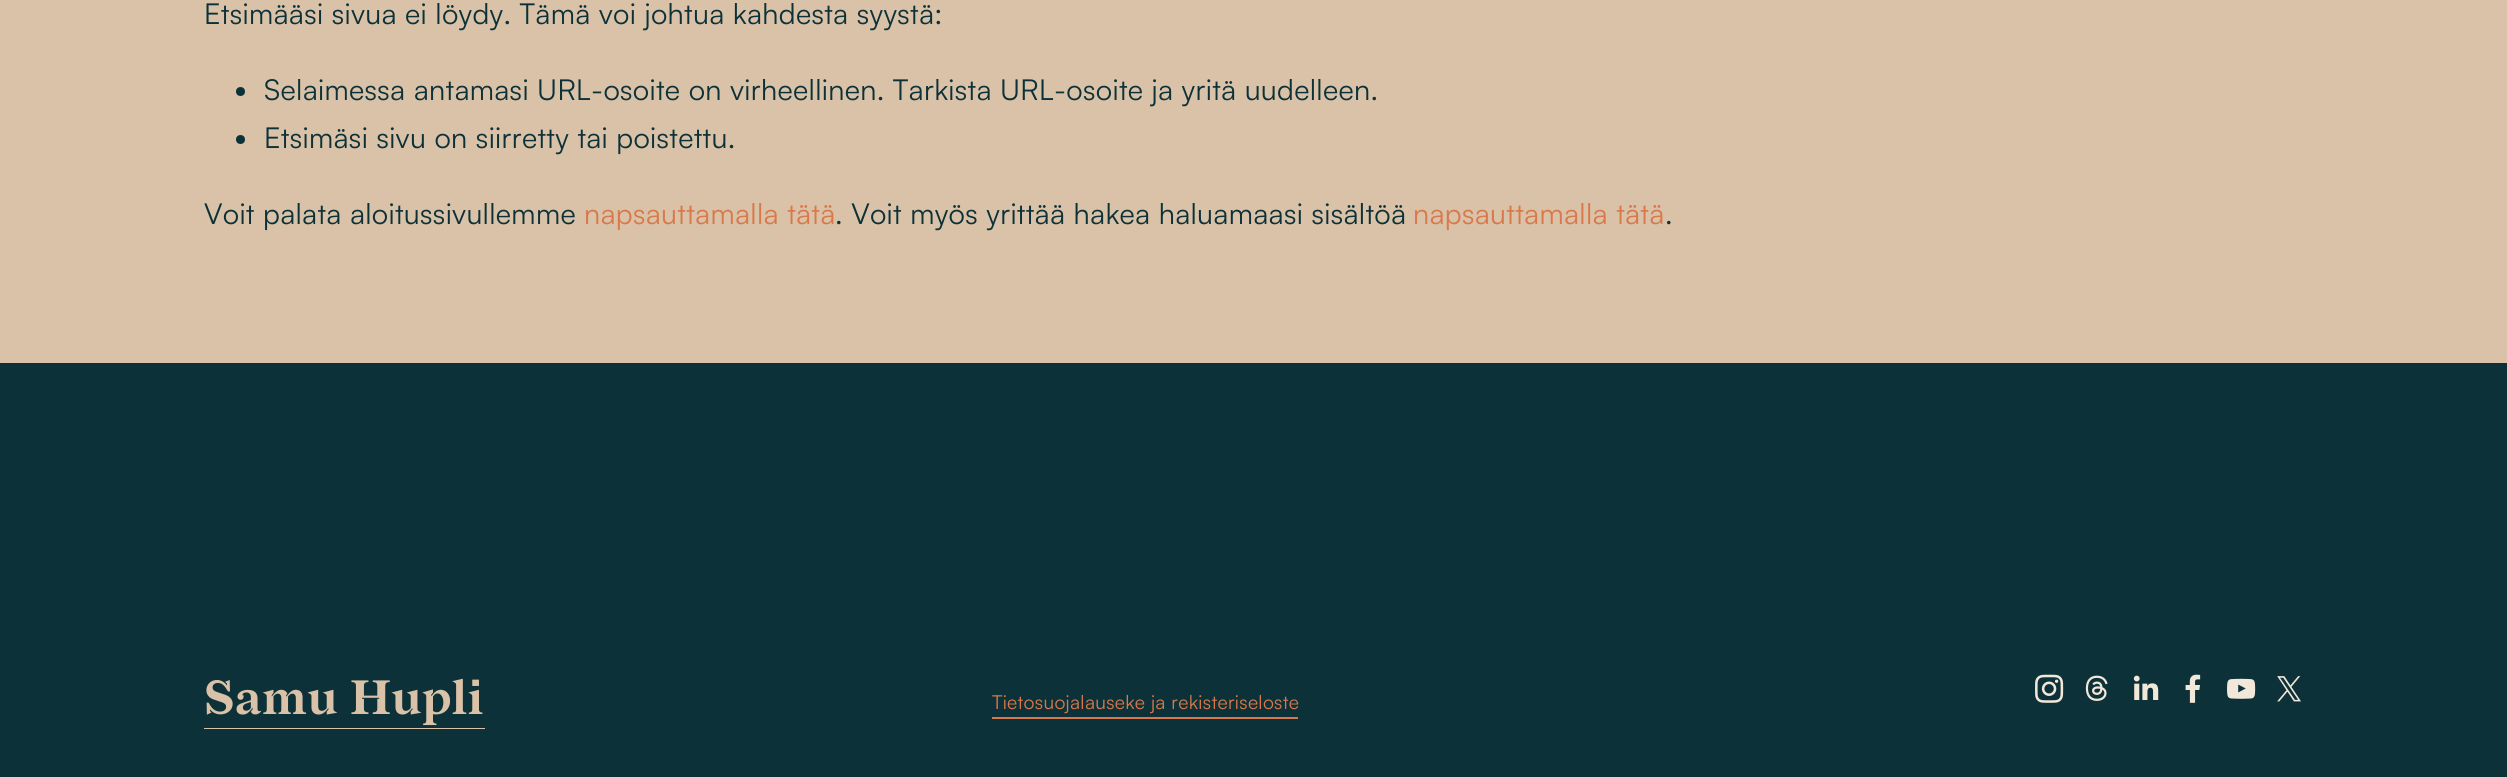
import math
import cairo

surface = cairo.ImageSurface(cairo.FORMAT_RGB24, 2507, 777)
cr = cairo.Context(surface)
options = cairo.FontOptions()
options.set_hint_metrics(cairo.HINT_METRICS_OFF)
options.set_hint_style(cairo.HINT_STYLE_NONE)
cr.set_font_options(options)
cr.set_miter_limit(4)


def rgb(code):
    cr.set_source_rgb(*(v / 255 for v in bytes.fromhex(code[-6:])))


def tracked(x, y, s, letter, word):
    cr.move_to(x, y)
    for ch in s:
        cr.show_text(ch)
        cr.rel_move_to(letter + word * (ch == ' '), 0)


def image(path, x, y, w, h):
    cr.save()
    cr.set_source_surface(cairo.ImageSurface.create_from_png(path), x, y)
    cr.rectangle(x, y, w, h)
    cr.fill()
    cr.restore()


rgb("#d9c2a7")
cr.paint()
rgb("#0d3138")
cr.arc(240.5, 91.5, 4.5, 0, 2 * math.pi)
cr.fill()
cr.arc(240.5, 139.5, 4.5, 0, 2 * math.pi)
cr.fill()
for x, y, w, h, color in [
    (0, 363, 2507, 414, "#0d3138"),
    (204, 728, 281, 1, "#d9c2a7"),
    (992, 717, 306, 2, "#d9784a"),
]:
    rgb(color)
    cr.rectangle(x, y, w, h)
    cr.fill()
image("img/1.png", 2035, 674, 29, 29)
image("img/2.png", 2085, 675, 23, 26)
image("img/3.png", 2133, 675, 26, 25)
image("img/4.png", 2185, 674, 16, 29)
image("img/5.png", 2227, 678, 29, 21)
image("img/6.png", 2277, 676, 24, 26)
cr.select_font_face("Satoshi")
cr.set_font_size(28.8)
rgb("#0d3138")
for x, y, s in [
    (204, 24, "Etsimääsi sivua ei löydy. Tämä voi johtua kahdesta syystä:"),
    (264, 100, "Selaimessa antamasi URL-osoite on virheellinen. Tarkista URL-osoite ja yritä uudelleen."),
    (264, 148, "Etsimäsi sivu on siirretty tai poistettu."),
    (204, 224, "Voit palata aloitussivullemme"),
]:
    tracked(x, y, s, 0.3, 0)
rgb("#d9784a")
tracked(584, 224, "napsauttamalla tätä", 0.3, 0)
rgb("#0d3138")
tracked(835, 224, ". Voit myös yrittää hakea haluamaasi sisältöä", 0.3, 0)
rgb("#d9784a")
tracked(1413, 224, "napsauttamalla tätä", 0.3, 0)
rgb("#0d3138")
tracked(1665, 224, ".", 0.3, 0)
cr.select_font_face("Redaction", cairo.FONT_SLANT_NORMAL, cairo.FONT_WEIGHT_BOLD)
cr.set_font_size(48)
rgb("#d9c2a7")
tracked(204, 714, "Samu Hupli", 0.5, 0)
cr.select_font_face("Satoshi")
cr.set_font_size(19.25)
rgb("#d9784a")
tracked(992, 709, "Tietosuojalauseke ja rekisteriseloste", 0.3, 0)
surface.write_to_png("page.png")
